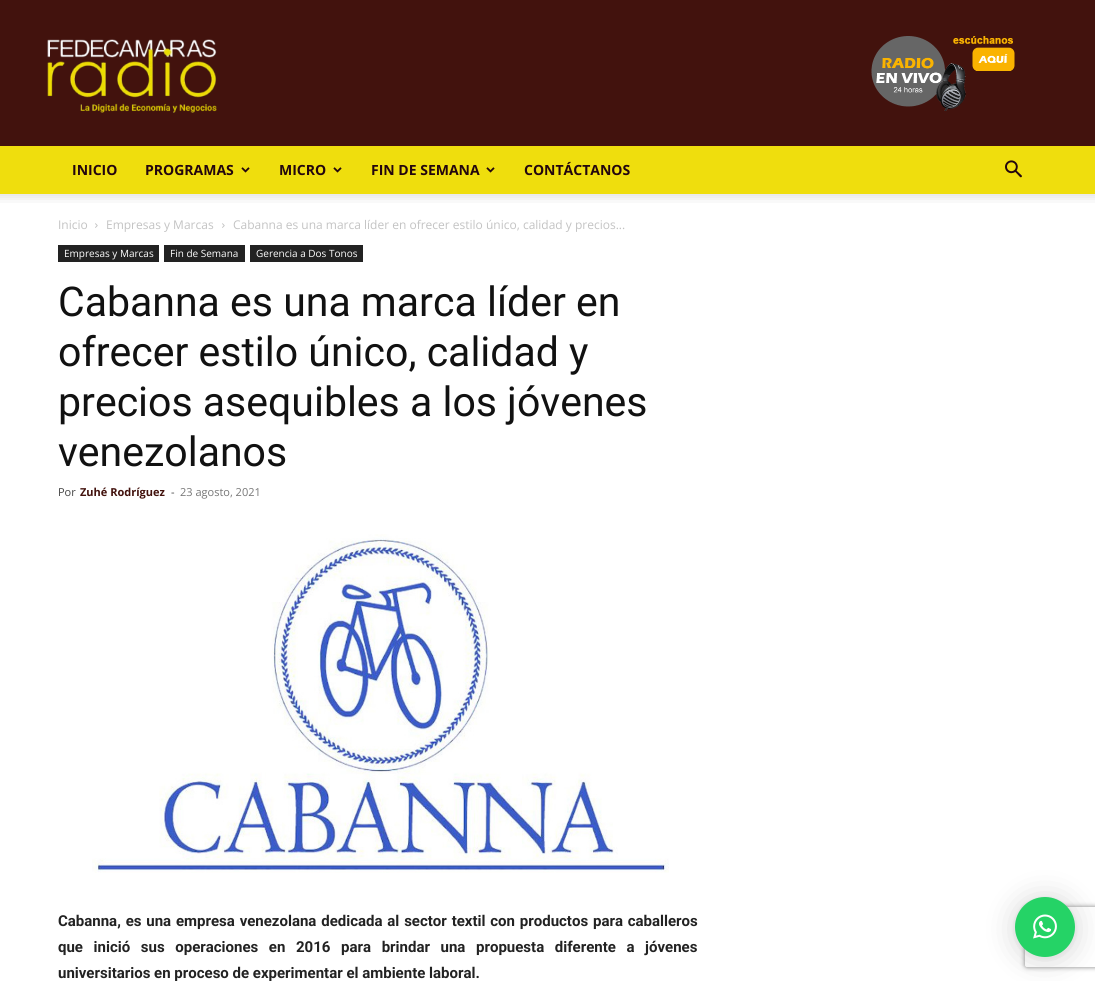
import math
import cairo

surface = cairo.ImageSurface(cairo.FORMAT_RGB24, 1095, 981)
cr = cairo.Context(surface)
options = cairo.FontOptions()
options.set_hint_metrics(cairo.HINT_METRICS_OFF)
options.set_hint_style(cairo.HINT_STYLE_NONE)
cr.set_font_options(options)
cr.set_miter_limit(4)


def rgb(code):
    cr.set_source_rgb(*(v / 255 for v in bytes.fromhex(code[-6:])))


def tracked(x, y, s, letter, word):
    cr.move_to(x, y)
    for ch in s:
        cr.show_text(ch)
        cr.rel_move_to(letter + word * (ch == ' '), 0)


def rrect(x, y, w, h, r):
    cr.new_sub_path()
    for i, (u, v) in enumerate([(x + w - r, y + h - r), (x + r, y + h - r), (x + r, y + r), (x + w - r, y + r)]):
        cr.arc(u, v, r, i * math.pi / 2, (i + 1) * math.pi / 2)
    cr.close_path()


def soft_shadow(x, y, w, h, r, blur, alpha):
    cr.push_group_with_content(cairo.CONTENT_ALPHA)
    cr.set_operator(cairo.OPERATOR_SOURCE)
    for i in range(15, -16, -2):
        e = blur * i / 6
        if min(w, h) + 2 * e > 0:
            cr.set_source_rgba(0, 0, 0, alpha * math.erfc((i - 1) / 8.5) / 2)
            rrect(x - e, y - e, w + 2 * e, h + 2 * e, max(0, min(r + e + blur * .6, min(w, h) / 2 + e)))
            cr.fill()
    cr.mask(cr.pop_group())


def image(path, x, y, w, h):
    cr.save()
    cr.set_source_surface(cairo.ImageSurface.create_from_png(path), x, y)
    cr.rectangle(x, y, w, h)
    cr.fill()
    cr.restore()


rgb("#ffffff")
cr.paint()
rgb("#42120d")
cr.rectangle(0, 0, 1095, 146)
cr.fill()
image("img/1.png", 47, 39, 170, 74)
image("img/2.png", 871, 36, 144, 75)
rgb("#efde0d")
cr.rectangle(0, 146, 1095, 48)
cr.fill()
image("img/3.png", 241, 167, 9, 6)
image("img/3.png", 333, 167, 9, 6)
image("img/3.png", 486, 167, 9, 6)
image("img/4.png", 1005, 160, 17, 18)
image("img/5.png", 0, 194, 1095, 9)
image("img/6.png", 95, 223, 3, 5)
image("img/6.png", 222, 223, 3, 5)
for x, y, w, h, color in [
    (58, 245, 101, 17, "#222222"),
    (164, 245, 81, 17, "#222222"),
    (250, 245, 113, 17, "#222222"),
]:
    rgb(color)
    cr.rectangle(x, y, w, h)
    cr.fill()
image("img/7.png", 92, 534, 577, 339)
rgb("#000000")
soft_shadow(1015, 899, 60, 60, 30, 16, 0.16)
soft_shadow(1015, 898, 60, 60, 30, 3, 0.06)
cr.save()
cr.set_fill_rule(cairo.FILL_RULE_EVEN_ODD)
cr.new_path()
cr.move_to(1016, 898)
cr.line_to(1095, 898)
cr.line_to(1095, 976)
cr.line_to(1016, 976)
cr.close_path()
cr.move_to(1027, 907)
cr.line_to(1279, 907)
cr.curve_to(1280, 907, 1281, 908, 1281, 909)
cr.line_to(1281, 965)
cr.curve_to(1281, 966, 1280, 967, 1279, 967)
cr.line_to(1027, 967)
cr.curve_to(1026, 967, 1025, 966, 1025, 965)
cr.line_to(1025, 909)
cr.curve_to(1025, 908, 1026, 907, 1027, 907)
cr.close_path()
cr.clip()
rgb("#808080")
soft_shadow(1025, 907, 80, 60, 2, 2.5, 1)
cr.restore()
rgb("#25d366")
cr.arc(1045, 927, 30, 0, 2 * math.pi)
cr.fill()
image("img/8.png", 1033, 914, 24, 25)
cr.select_font_face("Open Sans", cairo.FONT_SLANT_NORMAL, cairo.FONT_WEIGHT_BOLD)
cr.set_font_size(14)
rgb("#23060e")
for x, y, s in [
    (72, 175, "INICIO"),
    (145, 175, "PROGRAMAS"),
    (279, 175, "MICRO"),
    (371, 175, "FIN DE SEMANA"),
    (524, 175, "CONTÁCTANOS"),
]:
    cr.move_to(x, y)
    cr.show_text(s)
cr.select_font_face("Open Sans")
cr.set_font_size(12)
rgb("#c3c3c3")
for x, y, s in [
    (58, 229, "Inicio"),
    (106, 229, "Empresas y Marcas"),
    (233, 229, "Cabanna es una marca líder en ofrecer estilo único, calidad y precios..."),
]:
    cr.move_to(x, y)
    cr.show_text(s)
cr.set_font_size(10)
rgb("#ffffff")
for x, y, s in [
    (64, 257, "Empresas y Marcas"),
    (170, 257, "Fin de Semana"),
    (256, 257, "Gerencia a Dos Tonos"),
]:
    cr.move_to(x, y)
    cr.show_text(s)
cr.select_font_face("Roboto")
cr.set_font_size(41)
rgb("#111111")
for x, y, s in [
    (58, 316, "Cabanna es una marca líder en"),
    (58, 366, "ofrecer estilo único, calidad y"),
    (58, 416, "precios asequibles a los jóvenes"),
    (58, 466, "venezolanos"),
]:
    cr.move_to(x, y)
    cr.show_text(s)
cr.select_font_face("Open Sans")
cr.set_font_size(11)
rgb("#444444")
cr.move_to(58, 496)
cr.show_text("Por")
cr.select_font_face("Open Sans", cairo.FONT_SLANT_NORMAL, cairo.FONT_WEIGHT_BOLD)
rgb("#42120d")
cr.move_to(80, 496)
cr.show_text("Zuhé Rodríguez")
cr.select_font_face("Open Sans")
rgb("#444444")
cr.move_to(171, 496)
cr.show_text("-")
rgb("#767676")
cr.move_to(180, 496)
cr.show_text("23 agosto, 2021")
cr.select_font_face("Roboto", cairo.FONT_SLANT_NORMAL, cairo.FONT_WEIGHT_BOLD)
cr.set_font_size(15)
rgb("#222222")
tracked(58, 926, "Cabanna, es una empresa venezolana dedicada al sector textil con productos para caballeros", 0, 1.1)
tracked(58, 952, "que inició sus operaciones en 2016 para brindar una propuesta diferente a jóvenes", 0, 6.9)
cr.move_to(58, 978)
cr.show_text("universitarios en proceso de experimentar el ambiente laboral.")
surface.write_to_png("page.png")
